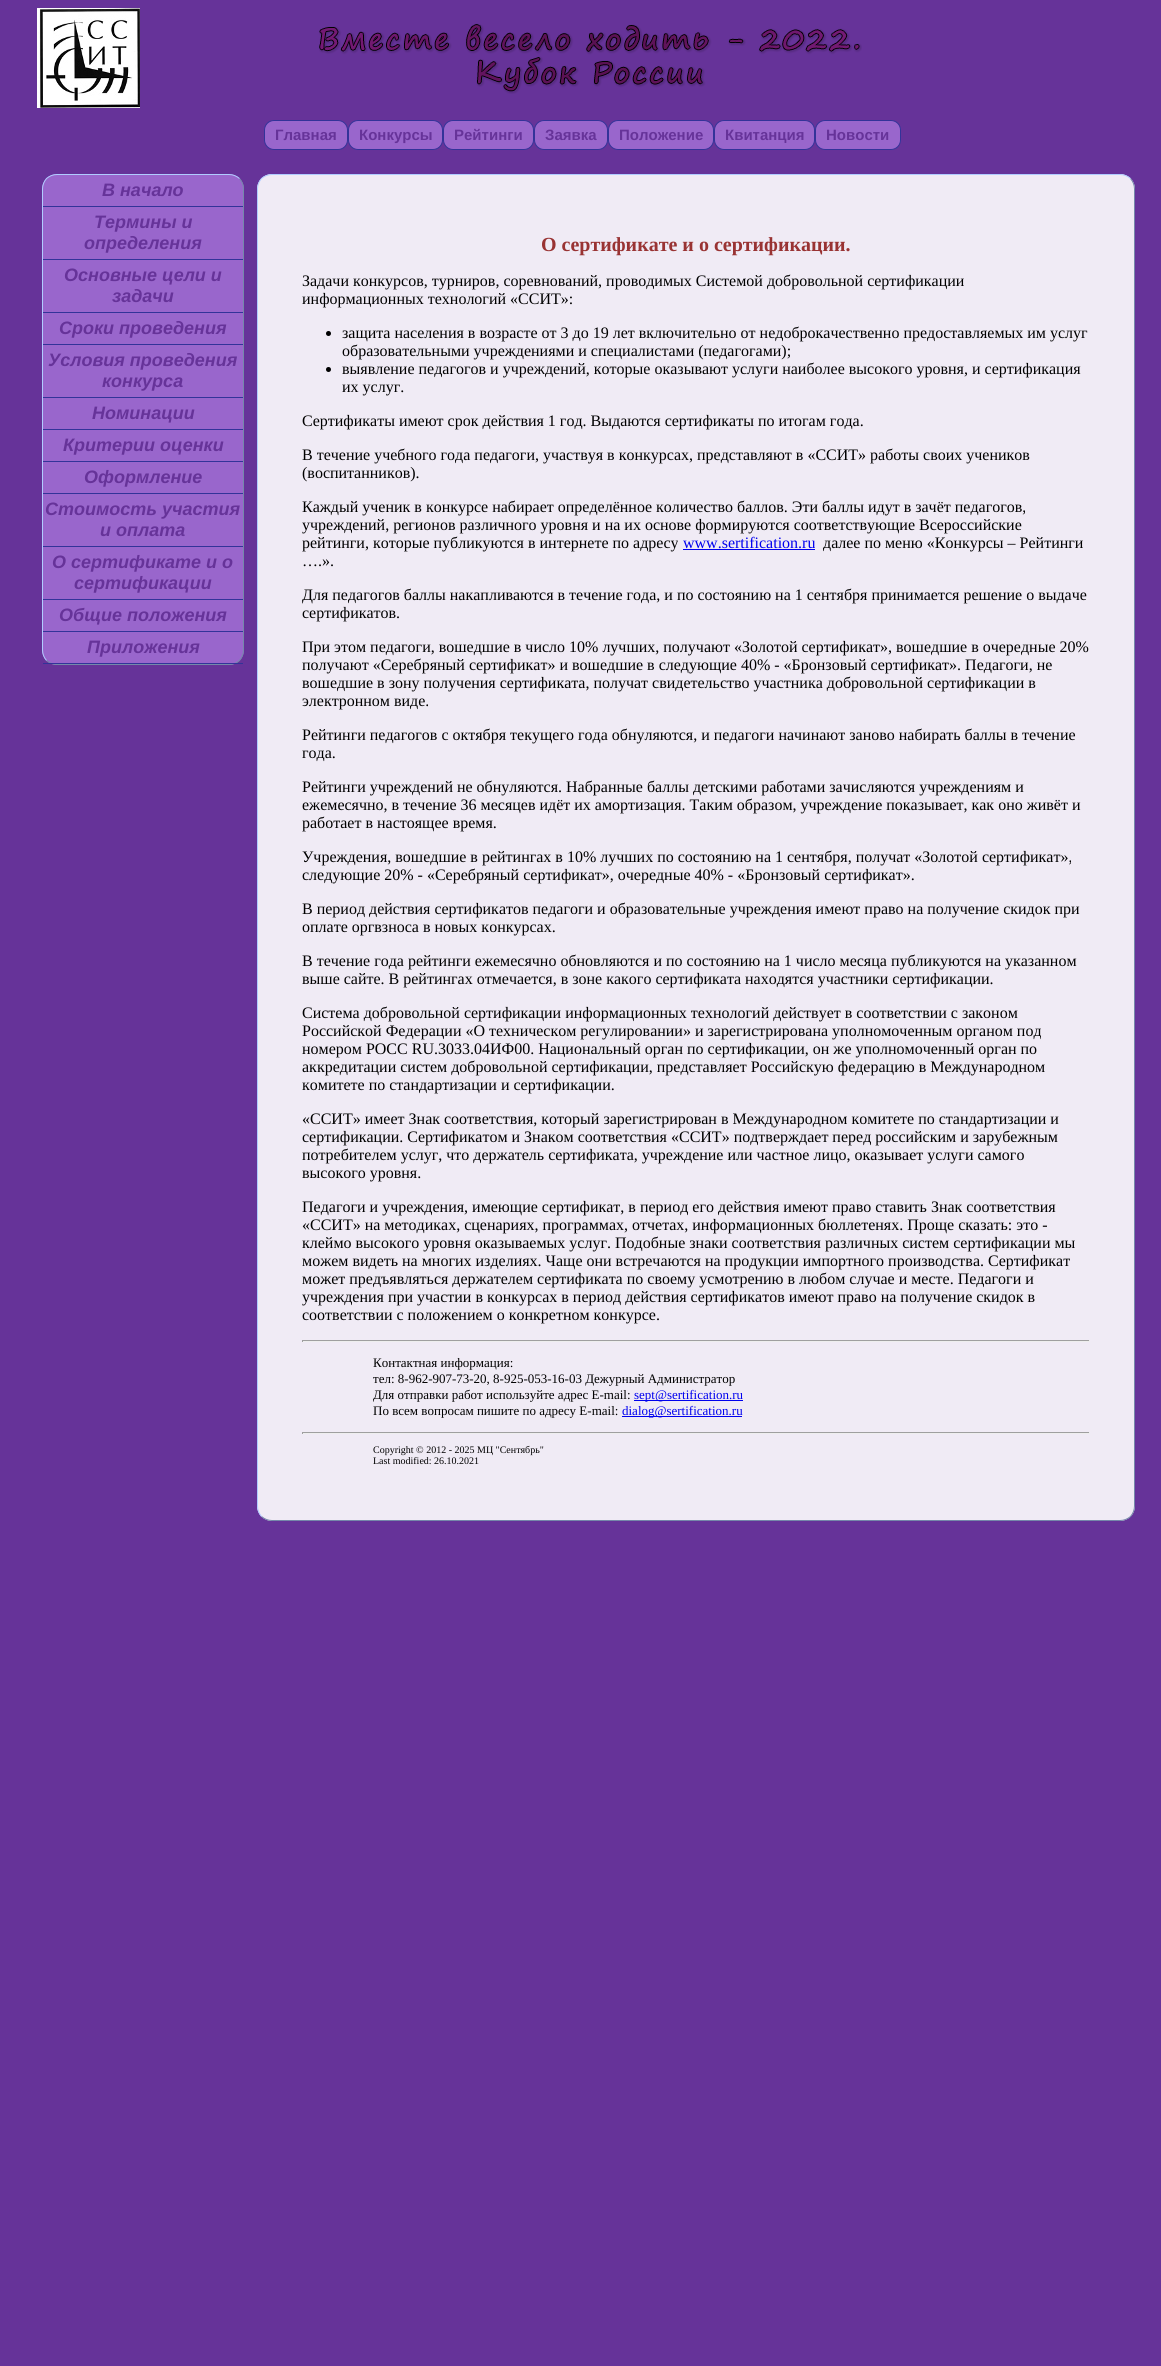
import math
import cairo

surface = cairo.ImageSurface(cairo.FORMAT_RGB24, 1161, 2366)
cr = cairo.Context(surface)
options = cairo.FontOptions()
options.set_hint_metrics(cairo.HINT_METRICS_OFF)
options.set_hint_style(cairo.HINT_STYLE_NONE)
cr.set_font_options(options)
cr.set_miter_limit(4)


def rgb(code):
    cr.set_source_rgb(*(v / 255 for v in bytes.fromhex(code[-6:])))


def rrect(x, y, w, h, r):
    cr.new_sub_path()
    for i, (u, v) in enumerate([(x + w - r, y + h - r), (x + r, y + h - r), (x + r, y + r), (x + w - r, y + r)]):
        cr.arc(u, v, r, i * math.pi / 2, (i + 1) * math.pi / 2)
    cr.close_path()


def image(path, x, y, w, h):
    cr.save()
    cr.set_source_surface(cairo.ImageSurface.create_from_png(path), x, y)
    cr.rectangle(x, y, w, h)
    cr.fill()
    cr.restore()


rgb("#663399")
cr.paint()
image("img/1.png", 37, 8, 103, 100)
image("img/2.png", 319, 23, 543, 71)
rgb("#9966cc")
rrect(264.5, 120.5, 83, 29, 9.5)
cr.fill_preserve()
rgb("#333399")
cr.set_line_width(1)
cr.stroke()
rgb("#9966cc")
rrect(348.5, 120.5, 94, 29, 9.5)
cr.fill_preserve()
rgb("#333399")
cr.stroke()
rgb("#9966cc")
rrect(443.5, 120.5, 90, 29, 9.5)
cr.fill_preserve()
rgb("#333399")
cr.stroke()
rgb("#9966cc")
rrect(534.5, 120.5, 73, 29, 9.5)
cr.fill_preserve()
rgb("#333399")
cr.stroke()
rgb("#9966cc")
rrect(608.5, 120.5, 105, 29, 9.5)
cr.fill_preserve()
rgb("#333399")
cr.stroke()
rgb("#9966cc")
rrect(714.5, 120.5, 100, 29, 9.5)
cr.fill_preserve()
rgb("#333399")
cr.stroke()
rgb("#9966cc")
rrect(815.5, 120.5, 85, 29, 9.5)
cr.fill_preserve()
rgb("#333399")
cr.stroke()
rgb("#9966cc")
rrect(42, 174, 202, 491, 15)
cr.fill()
cr.new_path()
cr.move_to(239.5, 178.5)
cr.curve_to(242, 181.5, 243.5, 185, 243.5, 189)
cr.line_to(243.5, 650)
cr.curve_to(243.5, 654, 242, 657.5, 239.5, 660.5)
cr.curve_to(236.5, 663, 233, 664.5, 229, 664.5)
cr.line_to(57, 664.5)
cr.curve_to(53, 664.5, 49.5, 663, 46.5, 660.5)
rgb("#7588aa")
cr.stroke()
cr.new_path()
cr.move_to(46.5, 660.5)
cr.curve_to(44, 657.5, 42.5, 654, 42.5, 650)
cr.line_to(42.5, 189)
cr.curve_to(42.5, 185, 44, 181.5, 46.5, 178.5)
cr.curve_to(49.5, 176, 53, 174.5, 57, 174.5)
cr.line_to(229, 174.5)
cr.curve_to(233, 174.5, 236.5, 176, 239.5, 178.5)
rgb("#b0ccff")
cr.stroke()
for x, y, w, h, color in [
    (43, 206, 200, 1, "#333399"),
    (43, 259, 200, 1, "#333399"),
    (43, 312, 200, 1, "#333399"),
    (43, 344, 200, 1, "#333399"),
    (43, 397, 200, 1, "#333399"),
    (43, 429, 200, 1, "#333399"),
    (43, 461, 200, 1, "#333399"),
    (43, 493, 200, 1, "#333399"),
    (43, 546, 200, 1, "#333399"),
    (43, 599, 200, 1, "#333399"),
    (43, 631, 200, 1, "#333399"),
    (43, 663, 200, 1, "#333399"),
]:
    rgb(color)
    cr.rectangle(x, y, w, h)
    cr.fill()
rgb("#f0ebf5")
rrect(257, 174, 878, 1347, 15)
cr.fill()
cr.new_path()
cr.move_to(1130.5, 178.5)
cr.curve_to(1133, 181.5, 1134.5, 185, 1134.5, 189)
cr.line_to(1134.5, 1506)
cr.curve_to(1134.5, 1510, 1133, 1513.5, 1130.5, 1516.5)
cr.curve_to(1127.5, 1519, 1124, 1520.5, 1120, 1520.5)
cr.line_to(272, 1520.5)
cr.curve_to(268, 1520.5, 264.5, 1519, 261.5, 1516.5)
rgb("#7588aa")
cr.stroke()
cr.new_path()
cr.move_to(261.5, 1516.5)
cr.curve_to(259, 1513.5, 257.5, 1510, 257.5, 1506)
cr.line_to(257.5, 189)
cr.curve_to(257.5, 185, 259, 181.5, 261.5, 178.5)
cr.curve_to(264.5, 176, 268, 174.5, 272, 174.5)
cr.line_to(1120, 174.5)
cr.curve_to(1124, 174.5, 1127.5, 176, 1130.5, 178.5)
rgb("#b0ccff")
cr.stroke()
rgb("#000000")
cr.arc(328.5, 333.5, 2.5, 0, 2 * math.pi)
cr.fill()
cr.arc(328.5, 369.5, 2.5, 0, 2 * math.pi)
cr.fill()
for x, y, w, h, color in [
    (683, 549, 132, 1, "#0000ee"),
    (302, 1340, 788, 1, "#9f9f9f"),
    (1089, 1340, 1, 2, "#eeeeee"),
    (302, 1341, 788, 1, "#eeeeee"),
    (302, 1340, 1, 2, "#9f9f9f"),
    (634, 1400, 109, 1, "#0000ee"),
    (622, 1416, 120, 1, "#0000ee"),
    (302, 1432, 788, 1, "#9f9f9f"),
    (1089, 1432, 1, 2, "#eeeeee"),
    (302, 1433, 788, 1, "#eeeeee"),
    (302, 1432, 1, 2, "#9f9f9f"),
]:
    rgb(color)
    cr.rectangle(x, y, w, h)
    cr.fill()
cr.select_font_face("Liberation Sans", cairo.FONT_SLANT_NORMAL, cairo.FONT_WEIGHT_BOLD)
cr.set_font_size(15)
rgb("#663399")
for x, y, s in [
    (275, 140, "Главная"),
    (359, 140, "Конкурсы"),
    (454, 140, "Рейтинги"),
    (545, 140, "Заявка"),
    (619, 140, "Положение"),
    (725, 140, "Квитанция"),
    (826, 140, "Новости"),
]:
    cr.move_to(x, y)
    cr.show_text(s)
cr.select_font_face("Liberation Sans", cairo.FONT_SLANT_ITALIC, cairo.FONT_WEIGHT_BOLD)
cr.set_font_size(18)
for x, y, s in [
    (102, 196, "В начало"),
    (94, 228, "Термины и"),
    (84, 249, "определения"),
    (64, 281, "Основные цели и"),
    (112, 302, "задачи"),
    (59, 334, "Сроки проведения"),
    (48, 366, "Условия проведения"),
    (102, 387, "конкурса"),
    (92, 419, "Номинации"),
    (63, 451, "Критерии оценки"),
    (84, 483, "Оформление"),
    (45, 515, "Стоимость участия"),
    (100, 536, "и оплата"),
    (52, 568, "О сертификате и о"),
    (74, 589, "сертификации"),
    (59, 621, "Общие положения"),
    (87, 653, "Приложения"),
]:
    cr.move_to(x, y)
    cr.show_text(s)
cr.select_font_face("Liberation Serif", cairo.FONT_SLANT_NORMAL, cairo.FONT_WEIGHT_BOLD)
cr.set_font_size(20)
rgb("#993333")
cr.move_to(541, 251)
cr.show_text("О сертификате и о сертификации.")
cr.select_font_face("Liberation Serif")
cr.set_font_size(16)
rgb("#000000")
for x, y, s in [
    (302, 286, "Задачи конкурсов, турниров, соревнований, проводимых Системой добровольной сертификации"),
    (302, 304, "информационных технологий «ССИТ»:"),
    (342, 338, "защита населения в возрасте от 3 до 19 лет включительно от недоброкачественно предоставляемых им услуг"),
    (342, 356, "образовательными учреждениями и специалистами (педагогами);"),
    (342, 374, "выявление педагогов и учреждений, которые оказывают услуги наиболее высокого уровня, и сертификация"),
    (342, 392, "их услуг."),
    (302, 426, "Сертификаты имеют срок действия 1 год. Выдаются сертификаты по итогам года."),
    (302, 460, "В течение учебного года педагоги, участвуя в конкурсах, представляют в «ССИТ» работы своих учеников"),
    (302, 478, "(воспитанников)."),
    (302, 512, "Каждый ученик в конкурсе набирает определённое количество баллов. Эти баллы идут в зачёт педагогов,"),
    (302, 530, "учреждений, регионов различного уровня и на их основе формируются соответствующие Всероссийские"),
    (302, 548, "рейтинги, которые публикуются в интернете по адресу"),
]:
    cr.move_to(x, y)
    cr.show_text(s)
rgb("#0000ee")
cr.move_to(683, 548)
cr.show_text("www.sertification.ru")
rgb("#000000")
for x, y, s in [
    (823, 548, "далее по меню «Конкурсы – Рейтинги"),
    (302, 566, "….»."),
    (302, 600, "Для педагогов баллы накапливаются в течение года, и по состоянию на 1 сентября принимается решение о выдаче"),
    (302, 618, "сертификатов."),
    (302, 652, "При этом педагоги, вошедшие в число 10% лучших, получают «Золотой сертификат», вошедшие в очередные 20%"),
    (302, 670, "получают «Серебряный сертификат» и вошедшие в следующие 40% - «Бронзовый сертификат». Педагоги, не"),
    (302, 688, "вошедшие в зону получения сертификата, получат свидетельство участника добровольной сертификации в"),
    (302, 706, "электронном виде."),
    (302, 740, "Рейтинги педагогов с октября текущего года обнуляются, и педагоги начинают заново набирать баллы в течение"),
    (302, 758, "года."),
    (302, 792, "Рейтинги учреждений не обнуляются. Набранные баллы детскими работами зачисляются учреждениям и"),
    (302, 810, "ежемесячно, в течение 36 месяцев идёт их амортизация. Таким образом, учреждение показывает, как оно живёт и"),
    (302, 828, "работает в настоящее время."),
    (302, 862, "Учреждения, вошедшие в рейтингах в 10% лучших по состоянию на 1 сентября, получат «Золотой сертификат»,"),
    (302, 880, "следующие 20% - «Серебряный сертификат», очередные 40% - «Бронзовый сертификат»."),
    (302, 914, "В период действия сертификатов педагоги и образовательные учреждения имеют право на получение скидок при"),
    (302, 932, "оплате оргвзноса в новых конкурсах."),
    (302, 966, "В течение года рейтинги ежемесячно обновляются и по состоянию на 1 число месяца публикуются на указанном"),
    (302, 984, "выше сайте. В рейтингах отмечается, в зоне какого сертификата находятся участники сертификации."),
    (302, 1018, "Система добровольной сертификации информационных технологий действует в соответствии с законом"),
    (302, 1036, "Российской Федерации «О техническом регулировании» и зарегистрирована уполномоченным органом под"),
    (302, 1054, "номером РОСС RU.3033.04ИФ00. Национальный орган по сертификации, он же уполномоченный орган по"),
    (302, 1072, "аккредитации систем добровольной сертификации, представляет Российскую федерацию в Международном"),
    (302, 1090, "комитете по стандартизации и сертификации."),
    (302, 1124, "«ССИТ» имеет Знак соответствия, который зарегистрирован в Международном комитете по стандартизации и"),
    (302, 1142, "сертификации. Сертификатом и Знаком соответствия «ССИТ» подтверждает перед российским и зарубежным"),
    (302, 1160, "потребителем услуг, что держатель сертификата, учреждение или частное лицо, оказывает услуги самого"),
    (302, 1178, "высокого уровня."),
    (302, 1212, "Педагоги и учреждения, имеющие сертификат, в период его действия имеют право ставить Знак соответствия"),
    (302, 1230, "«ССИТ» на методиках, сценариях, программах, отчетах, информационных бюллетенях. Проще сказать: это -"),
    (302, 1248, "клеймо высокого уровня оказываемых услуг. Подобные знаки соответствия различных систем сертификации мы"),
    (302, 1266, "можем видеть на многих изделиях. Чаще они встречаются на продукции импортного производства. Сертификат"),
    (302, 1284, "может предъявляться держателем сертификата по своему усмотрению в любом случае и месте. Педагоги и"),
    (302, 1302, "учреждения при участии в конкурсах в период действия сертификатов имеют право на получение скидок в"),
    (302, 1320, "соответствии с положением о конкретном конкурсе."),
]:
    cr.move_to(x, y)
    cr.show_text(s)
cr.set_font_size(13)
for x, y, s in [
    (373, 1367, "Контактная информация:"),
    (373, 1383, "тел: 8-962-907-73-20, 8-925-053-16-03 Дежурный Администратор"),
    (373, 1399, "Для отправки работ используйте адрес E-mail:"),
]:
    cr.move_to(x, y)
    cr.show_text(s)
rgb("#0000ee")
cr.move_to(634, 1399)
cr.show_text("sept@sertification.ru")
rgb("#000000")
cr.move_to(373, 1415)
cr.show_text("По всем вопросам пишите по адресу E-mail:")
rgb("#0000ee")
cr.move_to(622, 1415)
cr.show_text("dialog@sertification.ru")
cr.set_font_size(10)
rgb("#000000")
cr.move_to(373, 1453)
cr.show_text("Copyright © 2012 - 2025 МЦ \"Сентябрь\"")
cr.move_to(373, 1464)
cr.show_text("Last modified: 26.10.2021")
surface.write_to_png("page.png")
